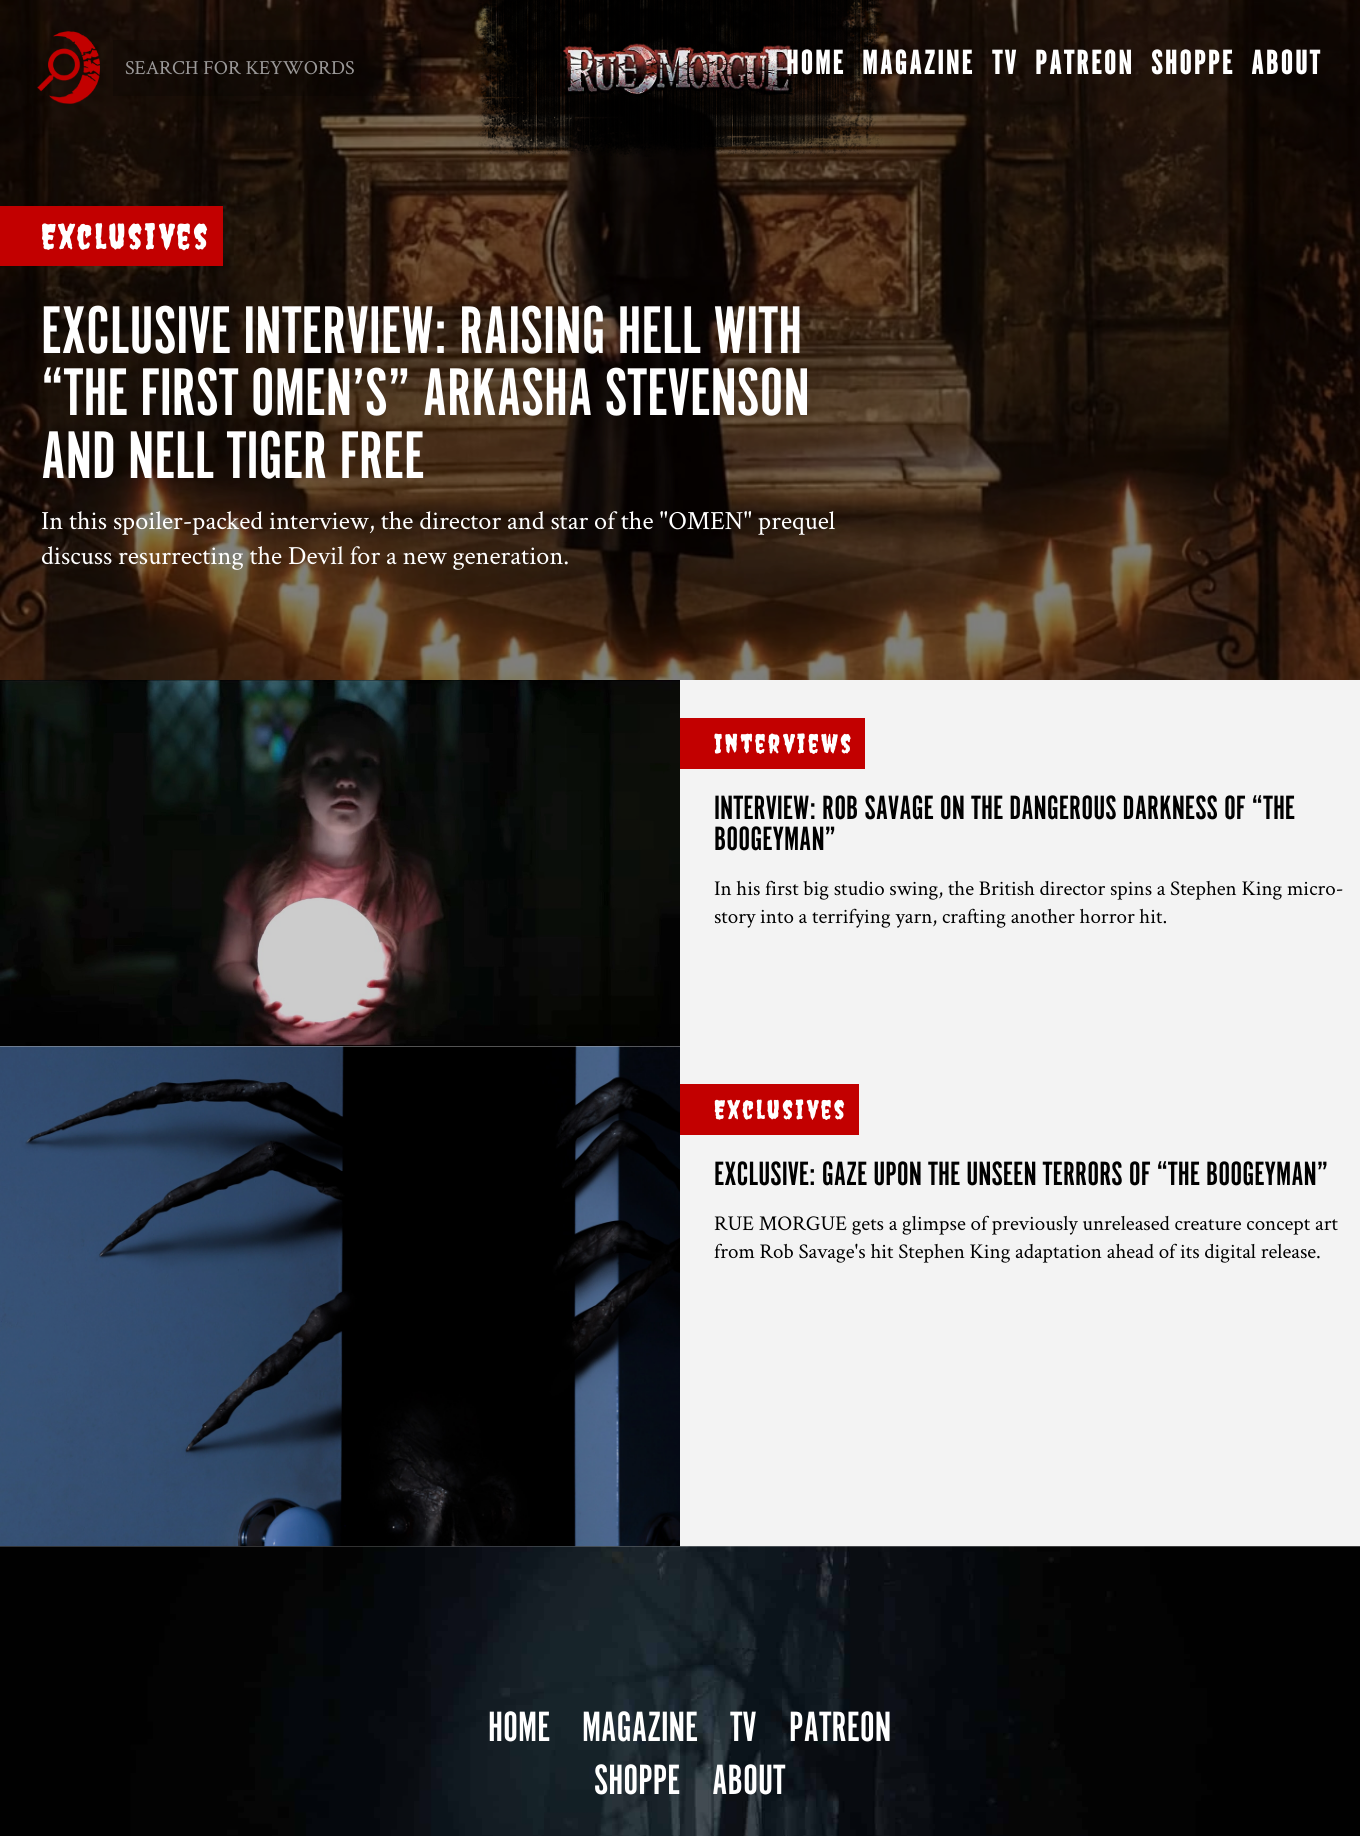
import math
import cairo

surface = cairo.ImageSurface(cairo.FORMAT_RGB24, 1360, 1836)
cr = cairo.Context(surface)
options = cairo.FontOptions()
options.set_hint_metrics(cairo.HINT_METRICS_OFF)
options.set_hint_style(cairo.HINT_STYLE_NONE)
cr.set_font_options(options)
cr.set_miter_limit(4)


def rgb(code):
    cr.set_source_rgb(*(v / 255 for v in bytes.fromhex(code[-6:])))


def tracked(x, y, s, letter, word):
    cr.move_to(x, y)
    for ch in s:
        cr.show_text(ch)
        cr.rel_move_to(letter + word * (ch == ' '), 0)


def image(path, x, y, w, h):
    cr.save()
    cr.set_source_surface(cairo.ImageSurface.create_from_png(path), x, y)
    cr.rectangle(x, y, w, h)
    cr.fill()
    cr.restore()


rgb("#ffffff")
cr.paint()
image("img/4.png", 0, 0, 1360, 680)
image("img/1.png", 37, 31, 63, 73)
cr.set_source_rgba(0, 0, 0, 0.2)
cr.rectangle(113, 40, 308, 56)
cr.fill()
image("img/2.png", 476, 0, 407, 157)
image("img/3.png", 563, 43, 233, 54)
rgb("#c20000")
cr.rectangle(0, 206, 223, 60)
cr.fill()
image("img/5.png", 0, 680, 680, 367)
rgb("#f3f3f3")
cr.rectangle(680, 680, 680, 866)
cr.fill()
rgb("#c20000")
cr.rectangle(680, 718, 185, 51)
cr.fill()
image("img/6.png", 0, 1046, 680, 501)
cr.set_source_rgba(0, 0, 0, 0.2)
cr.rectangle(0, 1046, 680, 500)
cr.fill()
rgb("#c20000")
cr.rectangle(680, 1084, 179, 51)
cr.fill()
image("img/7.png", 0, 1546, 1360, 290)
cr.select_font_face("Crimson Text")
cr.set_font_size(20)
rgb("#9b9999")
cr.move_to(125, 74)
cr.show_text("SEARCH FOR KEYWORDS")
cr.select_font_face("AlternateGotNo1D", cairo.FONT_SLANT_NORMAL, cairo.FONT_WEIGHT_BOLD)
cr.set_font_size(35)
rgb("#ffffff")
for x, y, s in [
    (786, 74, "HOME"),
    (862, 74, "MAGAZINE"),
    (992, 74, "TV"),
    (1035, 74, "PATREON"),
    (1151, 74, "SHOPPE"),
    (1251, 74, "ABOUT"),
]:
    tracked(x, y, s, 2.5, 0)
cr.select_font_face("Creepster")
tracked(41, 249, "Exclusives", 2.5, 0)
cr.select_font_face("AlternateGotNo1D")
cr.set_font_size(70)
for x, y, s in [
    (41, 353, "EXCLUSIVE INTERVIEW: RAISING HELL WITH"),
    (41, 415, "“THE FIRST OMEN’S” ARKASHA STEVENSON"),
    (41, 478, "AND NELL TIGER FREE"),
]:
    cr.move_to(x, y)
    cr.show_text(s)
cr.select_font_face("Crimson Text")
cr.set_font_size(26.25)
cr.move_to(41, 529)
cr.show_text("In this spoiler-packed interview, the director and star of the \"OMEN\" prequel")
cr.move_to(41, 564)
cr.show_text("discuss resurrecting the Devil for a new generation.")
cr.select_font_face("Creepster")
tracked(714, 753, "Interviews", 2.5, 0)
cr.select_font_face("AlternateGotNo1D")
cr.set_font_size(35)
rgb("#000000")
cr.move_to(714, 819)
cr.show_text("INTERVIEW: ROB SAVAGE ON THE DANGEROUS DARKNESS OF “THE")
cr.move_to(714, 850)
cr.show_text("BOOGEYMAN”")
cr.select_font_face("Crimson Text")
cr.set_font_size(21)
cr.move_to(714, 895)
cr.show_text("In his first big studio swing, the British director spins a Stephen King micro-")
cr.move_to(714, 923)
cr.show_text("story into a terrifying yarn, crafting another horror hit.")
cr.select_font_face("Creepster")
cr.set_font_size(26.25)
rgb("#ffffff")
tracked(714, 1119, "Exclusives", 2.5, 0)
cr.select_font_face("AlternateGotNo1D")
cr.set_font_size(35)
rgb("#000000")
cr.move_to(714, 1185)
cr.show_text("EXCLUSIVE: GAZE UPON THE UNSEEN TERRORS OF “THE BOOGEYMAN”")
cr.select_font_face("Crimson Text")
cr.set_font_size(21)
cr.move_to(714, 1230)
cr.show_text("RUE MORGUE gets a glimpse of previously unreleased creature concept art")
cr.move_to(714, 1258)
cr.show_text("from Rob Savage's hit Stephen King adaptation ahead of its digital release.")
cr.select_font_face("AlternateGotNo1D")
cr.set_font_size(44)
rgb("#ffffff")
for x, y, s in [
    (488, 1741, "HOME"),
    (582, 1741, "MAGAZINE"),
    (730, 1741, "TV"),
    (789, 1741, "PATREON"),
    (594, 1794, "SHOPPE"),
    (712, 1794, "ABOUT"),
]:
    cr.move_to(x, y)
    cr.show_text(s)
surface.write_to_png("page.png")
